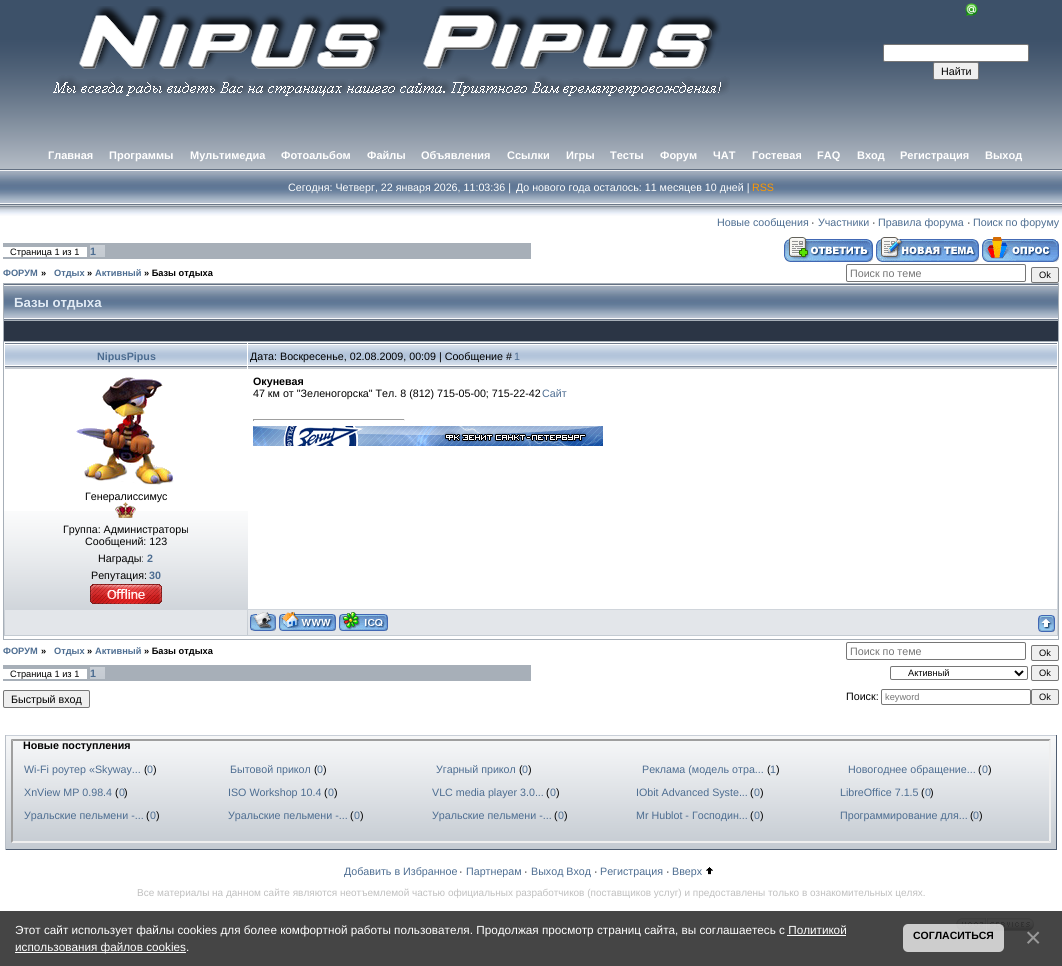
import math
import cairo

surface = cairo.ImageSurface(cairo.FORMAT_RGB24, 1062, 966)
cr = cairo.Context(surface)
options = cairo.FontOptions()
options.set_hint_metrics(cairo.HINT_METRICS_OFF)
options.set_hint_style(cairo.HINT_STYLE_NONE)
cr.set_font_options(options)
cr.set_miter_limit(4)


def rgb(code):
    cr.set_source_rgb(*(v / 255 for v in bytes.fromhex(code[-6:])))


def rrect(x, y, w, h, r):
    cr.new_sub_path()
    for i, (u, v) in enumerate([(x + w - r, y + h - r), (x + r, y + h - r), (x + r, y + r), (x + w - r, y + r)]):
        cr.arc(u, v, r, i * math.pi / 2, (i + 1) * math.pi / 2)
    cr.close_path()


def image(path, x, y, w, h):
    cr.save()
    cr.set_source_surface(cairo.ImageSurface.create_from_png(path), x, y)
    cr.rectangle(x, y, w, h)
    cr.fill()
    cr.restore()


rgb("#ffffff")
cr.paint()
rgb("#454545")
cr.rectangle(0, 911, 1062, 55)
cr.fill()
image("img/1.png", 0, 0, 1062, 216)
image("img/2.png", 53, 6, 677, 91)
image("img/3.png", 965, 3, 13, 13)
rgb("#ffffff")
rrect(883.5, 44.5, 145, 17, 1.5)
cr.fill_preserve()
rgb("#767676")
cr.set_line_width(1)
cr.stroke()
rgb("#efefef")
rrect(933.5, 62.5, 45, 17, 1.5)
cr.fill_preserve()
rgb("#767676")
cr.stroke()
rgb("#a7afb8")
cr.rectangle(3, 243, 528, 16)
cr.fill()
rgb("#ffffff")
cr.rectangle(3, 247, 84, 10)
cr.fill()
image("img/4.png", 90, 245, 15, 12)
image("img/5.png", 784, 237, 89, 25)
image("img/6.png", 876, 237, 103, 25)
image("img/7.png", 982, 237, 77, 25)
rrect(846.5, 264.5, 179, 17, 1.5)
rgb("#767676")
cr.stroke()
rgb("#efefef")
rrect(1031.5, 267.5, 27, 15, 1.5)
cr.fill_preserve()
rgb("#767676")
cr.stroke()
rgb("#a7afb8")
cr.rectangle(3, 283, 1056, 357)
cr.fill()
image("img/8.png", 4, 284, 1054, 36)
rgb("#2b3545")
cr.rectangle(4, 321, 1054, 20)
cr.fill()
rgb("#ffffff")
cr.rectangle(4, 342, 1054, 297)
cr.fill()
image("img/9.png", 4, 511, 1054, 125)
image("img/10.png", 5, 343, 242, 26)
image("img/11.png", 248, 343, 809, 26)
for x, y, w, h, color in [
    (248, 511, 809, 98, "#ffffff"),
    (253, 419, 152, 1, "#9f9f9f"),
    (404, 419, 1, 2, "#eeeeee"),
    (253, 419, 1, 2, "#9f9f9f"),
]:
    rgb(color)
    cr.rectangle(x, y, w, h)
    cr.fill()
image("img/12.png", 253, 426, 350, 20)
image("img/13.png", 76, 377, 98, 108)
image("img/15.png", 90, 584, 72, 20)
rgb("#e3e6ea")
cr.rectangle(5, 610, 242, 25)
cr.fill()
cr.rectangle(248, 610, 809, 25)
cr.fill()
image("img/16.png", 250, 612, 26, 19)
image("img/17.png", 279, 612, 57, 19)
image("img/18.png", 339, 612, 49, 19)
image("img/19.png", 1038, 615, 17, 17)
rrect(846.5, 642.5, 179, 17, 1.5)
rgb("#767676")
cr.stroke()
rgb("#efefef")
rrect(1031.5, 645.5, 27, 15, 1.5)
cr.fill_preserve()
rgb("#767676")
cr.stroke()
rgb("#a7afb8")
cr.rectangle(3, 665, 528, 16)
cr.fill()
rgb("#ffffff")
cr.rectangle(3, 669, 84, 10)
cr.fill()
image("img/4.png", 90, 667, 15, 12)
rrect(890.5, 666.5, 137, 13, 1.5)
rgb("#767676")
cr.stroke()
cr.new_path()
cr.move_to(1015, 671)
cr.line_to(1019, 675)
cr.line_to(1023, 671)
rgb("#000000")
cr.set_line_width(2)
cr.stroke()
rgb("#efefef")
rrect(1031.5, 665.5, 27, 15, 1.5)
cr.fill_preserve()
rgb("#767676")
cr.set_line_width(1)
cr.stroke()
rgb("#efefef")
rrect(3.5, 690.5, 86, 17, 1.5)
cr.fill_preserve()
rgb("#767676")
cr.stroke()
rrect(881.5, 689.5, 149, 15, 1.5)
cr.stroke()
rgb("#efefef")
rrect(1031.5, 689.5, 27, 15, 1.5)
cr.fill_preserve()
rgb("#767676")
cr.stroke()
image("img/20.png", 6, 736, 1050, 113)
for x, y, w, h, color in [
    (5, 735, 1052, 1, "#c9cfd8"),
    (1056, 735, 1, 115, "#4f5d71"),
    (5, 849, 1052, 1, "#4f5d71"),
    (5, 735, 1, 115, "#b9bfc7"),
]:
    rgb(color)
    cr.rectangle(x, y, w, h)
    cr.fill()
rgb("#9f9f9f")
cr.new_path()
cr.move_to(11, 739)
cr.line_to(1051, 739)
cr.line_to(1049, 741)
cr.line_to(13, 741)
cr.close_path()
cr.fill()
rgb("#efefef")
cr.new_path()
cr.move_to(1051, 739)
cr.line_to(1051, 843)
cr.line_to(1049, 841)
cr.line_to(1049, 741)
cr.close_path()
cr.fill()
cr.new_path()
cr.move_to(1051, 843)
cr.line_to(11, 843)
cr.line_to(13, 841)
cr.line_to(1049, 841)
cr.close_path()
cr.fill()
rgb("#9f9f9f")
cr.new_path()
cr.move_to(11, 843)
cr.line_to(11, 739)
cr.line_to(13, 741)
cr.line_to(13, 841)
cr.close_path()
cr.fill()
image("img/21.png", 706, 867, 7, 8)
image("img/22.png", 956, 918, 78, 13)
rgb("#ffffff")
cr.rectangle(787, 935, 59, 1)
cr.fill()
cr.rectangle(15, 952, 171, 1)
cr.fill()
cr.set_source_rgba(1, 1, 1, 0.73)
rrect(903, 924, 101, 28, 5)
cr.fill()
cr.select_font_face("Liberation Sans")
cr.set_font_size(10.7)
rgb("#000000")
cr.move_to(941, 75)
cr.show_text("Найти")
cr.select_font_face("Liberation Sans", cairo.FONT_SLANT_NORMAL, cairo.FONT_WEIGHT_BOLD)
cr.set_font_size(11)
rgb("#ffffff")
for x, y, s in [
    (48, 159, "Главная"),
    (109, 159, "Программы"),
    (190, 159, "Мультимедиа"),
    (281, 159, "Фотоальбом"),
    (367, 159, "Файлы"),
    (421, 159, "Объявления"),
    (507, 159, "Ссылки"),
    (566, 159, "Игры"),
    (610, 159, "Тесты"),
    (660, 159, "Форум"),
    (713, 159, "ЧАТ"),
    (752, 159, "Гостевая"),
    (817, 159, "FAQ"),
    (857, 159, "Вход"),
    (900, 159, "Регистрация"),
    (985, 159, "Выход"),
]:
    cr.move_to(x, y)
    cr.show_text(s)
cr.select_font_face("Liberation Sans")
cr.set_font_size(10.7)
cr.move_to(288, 191)
cr.show_text("Сегодня: Четверг, 22 января 2026, 11:03:36 |")
cr.move_to(516, 191)
cr.show_text("До нового года осталось: 11 месяцев 10 дней |")
rgb("#ff9900")
cr.move_to(752, 191)
cr.show_text("RSS")
rgb("#4d6d91")
cr.move_to(717, 226)
cr.show_text("Новые сообщения")
rgb("#000000")
cr.move_to(811, 226)
cr.show_text("·")
rgb("#4d6d91")
cr.move_to(818, 226)
cr.show_text("Участники")
rgb("#000000")
cr.move_to(872, 226)
cr.show_text("·")
rgb("#4d6d91")
cr.move_to(878, 226)
cr.show_text("Правила форума")
rgb("#000000")
cr.move_to(967, 226)
cr.show_text("·")
rgb("#4d6d91")
cr.move_to(973, 226)
cr.show_text("Поиск по форуму")
cr.set_font_size(9.25)
rgb("#000000")
cr.move_to(10, 255)
cr.show_text("Страница 1 из 1")
cr.select_font_face("Liberation Sans", cairo.FONT_SLANT_NORMAL, cairo.FONT_WEIGHT_BOLD)
cr.set_font_size(10.7)
rgb("#4d6d91")
cr.move_to(90, 255)
cr.show_text("1")
cr.set_font_size(9.25)
cr.move_to(3, 276)
cr.show_text("ФОРУМ")
rgb("#000000")
cr.move_to(41, 276)
cr.show_text("»")
rgb("#4d6d91")
cr.move_to(54, 276)
cr.show_text("Отдых")
rgb("#000000")
cr.move_to(87, 276)
cr.show_text("»")
rgb("#4d6d91")
cr.move_to(95, 276)
cr.show_text("Активный")
rgb("#000000")
cr.move_to(144, 276)
cr.show_text("» Базы отдыха")
cr.select_font_face("Liberation Sans")
cr.set_font_size(10.7)
rgb("#757575")
cr.move_to(850, 277)
cr.show_text("Поиск по теме")
cr.set_font_size(9.25)
rgb("#000000")
cr.move_to(1039, 278)
cr.show_text("Ok")
cr.select_font_face("Liberation Sans", cairo.FONT_SLANT_NORMAL, cairo.FONT_WEIGHT_BOLD)
cr.set_font_size(13.25)
rgb("#e2ebf5")
cr.move_to(14, 307)
cr.show_text("Базы отдыха")
cr.set_font_size(10.7)
rgb("#4d6d91")
cr.move_to(97, 360)
cr.show_text("NipusPipus")
cr.select_font_face("Liberation Sans")
rgb("#000000")
cr.move_to(250, 360)
cr.show_text("Дата: Воскресенье, 02.08.2009, 00:09 | Сообщение #")
rgb("#4d6d91")
cr.move_to(514, 360)
cr.show_text("1")
cr.select_font_face("Liberation Sans", cairo.FONT_SLANT_NORMAL, cairo.FONT_WEIGHT_BOLD)
rgb("#000000")
cr.move_to(253, 385)
cr.show_text("Окуневая")
cr.select_font_face("Liberation Sans")
cr.move_to(253, 397)
cr.show_text("47 км от \"Зеленогорска\" Тел. 8 (812) 715-05-00; 715-22-42")
rgb("#4d6d91")
cr.move_to(542, 397)
cr.show_text("Сайт")
rgb("#000000")
cr.move_to(85, 500)
cr.show_text("Генералиссимус")
image("img/14.png", 115, 502, 21, 16)
for x, y, s in [
    (63, 533, "Группа: Администраторы"),
    (85, 545, "Сообщений: 123"),
    (98, 562, "Награды:"),
]:
    cr.move_to(x, y)
    cr.show_text(s)
cr.select_font_face("Liberation Sans", cairo.FONT_SLANT_NORMAL, cairo.FONT_WEIGHT_BOLD)
rgb("#4d6d91")
cr.move_to(147, 562)
cr.show_text("2")
cr.select_font_face("Liberation Sans")
rgb("#000000")
cr.move_to(91, 579)
cr.show_text("Репутация:")
cr.select_font_face("Liberation Sans", cairo.FONT_SLANT_NORMAL, cairo.FONT_WEIGHT_BOLD)
rgb("#4d6d91")
cr.move_to(149, 579)
cr.show_text("30")
cr.set_font_size(9.25)
cr.move_to(3, 654)
cr.show_text("ФОРУМ")
rgb("#000000")
cr.move_to(41, 654)
cr.show_text("»")
rgb("#4d6d91")
cr.move_to(54, 654)
cr.show_text("Отдых")
rgb("#000000")
cr.move_to(87, 654)
cr.show_text("»")
rgb("#4d6d91")
cr.move_to(95, 654)
cr.show_text("Активный")
rgb("#000000")
cr.move_to(144, 654)
cr.show_text("» Базы отдыха")
cr.select_font_face("Liberation Sans")
cr.set_font_size(10.7)
rgb("#757575")
cr.move_to(850, 655)
cr.show_text("Поиск по теме")
cr.set_font_size(9.25)
rgb("#000000")
cr.move_to(1039, 656)
cr.show_text("Ok")
cr.move_to(10, 677)
cr.show_text("Страница 1 из 1")
cr.select_font_face("Liberation Sans", cairo.FONT_SLANT_NORMAL, cairo.FONT_WEIGHT_BOLD)
cr.set_font_size(10.7)
rgb("#4d6d91")
cr.move_to(90, 677)
cr.show_text("1")
cr.select_font_face("Liberation Sans")
cr.set_font_size(9.25)
rgb("#000000")
cr.move_to(908, 676)
cr.show_text("Активный")
cr.move_to(1039, 676)
cr.show_text("Ok")
cr.set_font_size(10.7)
cr.move_to(11, 703)
cr.show_text("Быстрый вход")
cr.move_to(846, 700)
cr.show_text("Поиск:")
cr.set_font_size(9.25)
rgb("#757575")
cr.move_to(885, 700)
cr.show_text("keyword")
rgb("#000000")
cr.move_to(1039, 700)
cr.show_text("Ok")
cr.select_font_face("Liberation Sans", cairo.FONT_SLANT_NORMAL, cairo.FONT_WEIGHT_BOLD)
cr.set_font_size(10.7)
cr.move_to(23, 749)
cr.show_text("Новые поступления")
cr.select_font_face("Liberation Sans")
rgb("#4d6d91")
cr.move_to(24, 773)
cr.show_text("Wi-Fi роутер «Skyway...")
rgb("#000000")
cr.move_to(144, 773)
cr.show_text("(")
rgb("#4d6d91")
cr.move_to(147, 773)
cr.show_text("0")
rgb("#000000")
cr.move_to(153, 773)
cr.show_text(")")
rgb("#4d6d91")
cr.move_to(230, 773)
cr.show_text("Бытовой прикол")
rgb("#000000")
cr.move_to(314, 773)
cr.show_text("(")
rgb("#4d6d91")
cr.move_to(317, 773)
cr.show_text("0")
rgb("#000000")
cr.move_to(323, 773)
cr.show_text(")")
rgb("#4d6d91")
cr.move_to(436, 773)
cr.show_text("Угарный прикол")
rgb("#000000")
cr.move_to(519, 773)
cr.show_text("(")
rgb("#4d6d91")
cr.move_to(522, 773)
cr.show_text("0")
rgb("#000000")
cr.move_to(528, 773)
cr.show_text(")")
rgb("#4d6d91")
cr.move_to(642, 773)
cr.show_text("Реклама (модель отра...")
rgb("#000000")
cr.move_to(767, 773)
cr.show_text("(")
rgb("#4d6d91")
cr.move_to(770, 773)
cr.show_text("1")
rgb("#000000")
cr.move_to(776, 773)
cr.show_text(")")
rgb("#4d6d91")
cr.move_to(848, 773)
cr.show_text("Новогоднее обращение...")
rgb("#000000")
cr.move_to(978, 773)
cr.show_text("(")
rgb("#4d6d91")
cr.move_to(982, 773)
cr.show_text("0")
rgb("#000000")
cr.move_to(988, 773)
cr.show_text(")")
rgb("#4d6d91")
cr.move_to(24, 796)
cr.show_text("XnView MP 0.98.4")
rgb("#000000")
cr.move_to(115, 796)
cr.show_text("(")
rgb("#4d6d91")
cr.move_to(119, 796)
cr.show_text("0")
rgb("#000000")
cr.move_to(124, 796)
cr.show_text(")")
rgb("#4d6d91")
cr.move_to(228, 796)
cr.show_text("ISO Workshop 10.4")
rgb("#000000")
cr.move_to(324, 796)
cr.show_text("(")
rgb("#4d6d91")
cr.move_to(328, 796)
cr.show_text("0")
rgb("#000000")
cr.move_to(334, 796)
cr.show_text(")")
rgb("#4d6d91")
cr.move_to(432, 796)
cr.show_text("VLC media player 3.0...")
rgb("#000000")
cr.move_to(546, 796)
cr.show_text("(")
rgb("#4d6d91")
cr.move_to(550, 796)
cr.show_text("0")
rgb("#000000")
cr.move_to(556, 796)
cr.show_text(")")
rgb("#4d6d91")
cr.move_to(636, 796)
cr.show_text("IObit Advanced Syste...")
rgb("#000000")
cr.move_to(750, 796)
cr.show_text("(")
rgb("#4d6d91")
cr.move_to(754, 796)
cr.show_text("0")
rgb("#000000")
cr.move_to(760, 796)
cr.show_text(")")
rgb("#4d6d91")
cr.move_to(840, 796)
cr.show_text("LibreOffice 7.1.5")
rgb("#000000")
cr.move_to(921, 796)
cr.show_text("(")
rgb("#4d6d91")
cr.move_to(925, 796)
cr.show_text("0")
rgb("#000000")
cr.move_to(930, 796)
cr.show_text(")")
rgb("#4d6d91")
cr.move_to(24, 819)
cr.show_text("Уральские пельмени -...")
rgb("#000000")
cr.move_to(146, 819)
cr.show_text("(")
rgb("#4d6d91")
cr.move_to(150, 819)
cr.show_text("0")
rgb("#000000")
cr.move_to(156, 819)
cr.show_text(")")
rgb("#4d6d91")
cr.move_to(228, 819)
cr.show_text("Уральские пельмени -...")
rgb("#000000")
cr.move_to(350, 819)
cr.show_text("(")
rgb("#4d6d91")
cr.move_to(354, 819)
cr.show_text("0")
rgb("#000000")
cr.move_to(360, 819)
cr.show_text(")")
rgb("#4d6d91")
cr.move_to(432, 819)
cr.show_text("Уральские пельмени -...")
rgb("#000000")
cr.move_to(554, 819)
cr.show_text("(")
rgb("#4d6d91")
cr.move_to(558, 819)
cr.show_text("0")
rgb("#000000")
cr.move_to(564, 819)
cr.show_text(")")
rgb("#4d6d91")
cr.move_to(636, 819)
cr.show_text("Mr Hublot - Господин...")
rgb("#000000")
cr.move_to(750, 819)
cr.show_text("(")
rgb("#4d6d91")
cr.move_to(754, 819)
cr.show_text("0")
rgb("#000000")
cr.move_to(760, 819)
cr.show_text(")")
rgb("#4d6d91")
cr.move_to(840, 819)
cr.show_text("Программирование для...")
rgb("#000000")
cr.move_to(970, 819)
cr.show_text("(")
rgb("#4d6d91")
cr.move_to(973, 819)
cr.show_text("0")
rgb("#000000")
cr.move_to(979, 819)
cr.show_text(")")
rgb("#4d6d91")
cr.move_to(344, 875)
cr.show_text("Добавить в Избранное")
rgb("#000000")
cr.move_to(459, 875)
cr.show_text("·")
rgb("#4d6d91")
cr.move_to(466, 875)
cr.show_text("Партнерам")
rgb("#000000")
cr.move_to(524, 875)
cr.show_text("·")
rgb("#4d6d91")
cr.move_to(531, 875)
cr.show_text("Выход Вход")
rgb("#000000")
cr.move_to(594, 875)
cr.show_text("·")
rgb("#4d6d91")
cr.move_to(600, 875)
cr.show_text("Регистрация")
rgb("#000000")
cr.move_to(666, 875)
cr.show_text("·")
rgb("#4d6d91")
cr.move_to(672, 875)
cr.show_text("Вверх")
cr.set_font_size(10)
rgb("#c0c0c0")
cr.move_to(137, 896)
cr.show_text("Все материалы на данном сайте являются неотъемлемой частью официальных разработчиков (поставщиков услуг) и предоставлены только в ознакомительных целях.")
cr.set_font_size(11.73)
rgb("#ffffff")
cr.move_to(15, 934)
cr.show_text("Этот сайт использует файлы cookies для более комфортной работы пользователя. Продолжая просмотр страниц сайта, вы соглашаетесь с Политикой")
cr.move_to(15, 951)
cr.show_text("использования файлов cookies.")
cr.select_font_face("Liberation Sans", cairo.FONT_SLANT_NORMAL, cairo.FONT_WEIGHT_BOLD)
cr.set_font_size(10.5)
rgb("#000000")
cr.move_to(913, 939)
cr.show_text("СОГЛАСИТЬСЯ")
cr.select_font_face("Liberation Sans")
cr.set_font_size(28)
rgb("#999999")
cr.move_to(1025, 947)
cr.show_text("×")
surface.write_to_png("page.png")
